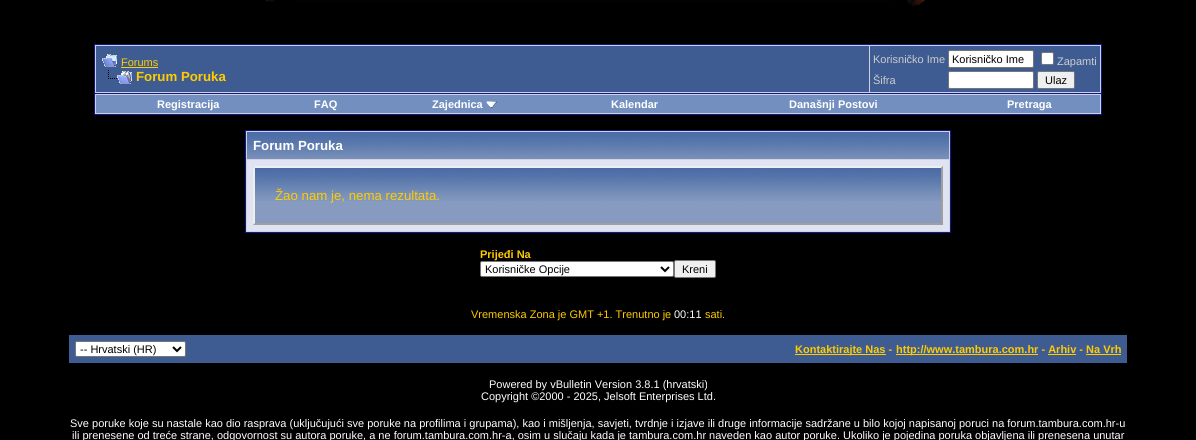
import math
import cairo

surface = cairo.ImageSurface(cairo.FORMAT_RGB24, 1196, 440)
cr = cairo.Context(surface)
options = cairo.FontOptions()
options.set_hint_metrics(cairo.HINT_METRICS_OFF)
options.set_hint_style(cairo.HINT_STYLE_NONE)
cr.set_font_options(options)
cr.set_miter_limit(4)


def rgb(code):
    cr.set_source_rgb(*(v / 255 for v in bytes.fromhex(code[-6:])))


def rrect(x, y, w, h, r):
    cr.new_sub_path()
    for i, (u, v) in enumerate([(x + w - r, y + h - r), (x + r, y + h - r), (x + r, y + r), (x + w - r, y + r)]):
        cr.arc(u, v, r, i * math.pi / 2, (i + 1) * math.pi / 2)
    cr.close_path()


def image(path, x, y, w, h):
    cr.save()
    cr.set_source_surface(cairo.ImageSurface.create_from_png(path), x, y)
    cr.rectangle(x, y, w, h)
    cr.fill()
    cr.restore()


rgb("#000000")
cr.paint()
image("img/1.png", 265, 0, 661, 6)
rgb("#d1d1e1")
cr.rectangle(94.5, 44.5, 1007, 49)
cr.fill_preserve()
rgb("#0b198c")
cr.set_line_width(1)
cr.stroke()
rgb("#3e5c92")
cr.rectangle(96, 46, 773, 46)
cr.fill()
image("img/2.png", 102, 54, 15, 13)
rgb("#ffcc00")
cr.rectangle(121, 67, 37, 1)
cr.fill()
image("img/3.png", 108, 70, 24, 14)
rgb("#3e5c92")
cr.rectangle(870, 46, 230, 46)
cr.fill()
rgb("#ffffff")
rrect(948.5, 50.5, 85, 17, 1.5)
cr.fill_preserve()
rgb("#767676")
cr.stroke()
rgb("#ffffff")
rrect(1041.5, 52.5, 12, 12, 1.5)
cr.fill_preserve()
rgb("#767676")
cr.stroke()
rgb("#ffffff")
rrect(948.5, 71.5, 85, 17, 1.5)
cr.fill_preserve()
rgb("#767676")
cr.stroke()
rgb("#efefef")
rrect(1037.5, 71.5, 37, 17, 1.5)
cr.fill_preserve()
rgb("#767676")
cr.stroke()
for x, y, w, h, color in [
    (95, 94, 1006, 20, "#d1d1e1"),
    (1101, 94, 1, 21, "#0b198c"),
    (94, 114, 1008, 1, "#0b198c"),
    (94, 94, 1, 21, "#0b198c"),
    (96, 95, 1004, 18, "#738fbf"),
]:
    rgb(color)
    cr.rectangle(x, y, w, h)
    cr.fill()
image("img/4.png", 486, 101, 11, 7)
rgb("#d1d1e1")
cr.rectangle(245.5, 130.5, 705, 102)
cr.fill_preserve()
rgb("#0b198c")
cr.stroke()
image("img/5.png", 247, 132, 702, 27)
rgb("#e0e3f1")
cr.rectangle(247, 160, 702, 71)
cr.fill()
rgb("#869bbf")
cr.rectangle(253, 166, 690, 59)
cr.fill()
image("img/6.png", 255, 168, 686, 33)
rgb("#eeeeee")
cr.new_path()
cr.move_to(253, 166)
cr.line_to(943, 166)
cr.line_to(941, 168)
cr.line_to(255, 168)
cr.close_path()
cr.fill()
rgb("#9f9f9f")
cr.new_path()
cr.move_to(943, 166)
cr.line_to(943, 225)
cr.line_to(941, 223)
cr.line_to(941, 168)
cr.close_path()
cr.fill()
cr.new_path()
cr.move_to(943, 225)
cr.line_to(253, 225)
cr.line_to(255, 223)
cr.line_to(941, 223)
cr.close_path()
cr.fill()
rgb("#eeeeee")
cr.new_path()
cr.move_to(253, 225)
cr.line_to(253, 166)
cr.line_to(255, 168)
cr.line_to(255, 223)
cr.close_path()
cr.fill()
rgb("#ffffff")
rrect(480.5, 261.5, 193, 15, 1.5)
cr.fill_preserve()
rgb("#767676")
cr.stroke()
cr.new_path()
cr.move_to(661, 267)
cr.line_to(665, 271)
cr.line_to(669, 267)
rgb("#000000")
cr.set_line_width(2)
cr.stroke()
rgb("#efefef")
rrect(674.5, 260.5, 41, 17, 1.5)
cr.fill_preserve()
rgb("#767676")
cr.set_line_width(1)
cr.stroke()
rgb("#3e5c92")
cr.rectangle(69, 335, 1058, 28)
cr.fill()
rgb("#ffffff")
rrect(75.5, 341.5, 110, 15, 1.5)
cr.fill_preserve()
rgb("#767676")
cr.stroke()
cr.new_path()
cr.move_to(173, 347)
cr.line_to(177, 351)
cr.line_to(181, 347)
rgb("#000000")
cr.set_line_width(2)
cr.stroke()
for x, y, w, h, color in [
    (795, 354, 91, 1, "#ffcc00"),
    (896, 354, 142, 1, "#ffcc00"),
    (1048, 354, 28, 1, "#ffcc00"),
    (1086, 354, 35, 1, "#ffcc00"),
]:
    rgb(color)
    cr.rectangle(x, y, w, h)
    cr.fill()
cr.select_font_face("Liberation Sans")
cr.set_font_size(11)
cr.move_to(121, 66)
cr.show_text("Forums")
cr.select_font_face("Liberation Sans", cairo.FONT_SLANT_NORMAL, cairo.FONT_WEIGHT_BOLD)
cr.set_font_size(13.25)
cr.move_to(136, 81)
cr.show_text("Forum Poruka")
cr.select_font_face("Liberation Sans")
cr.set_font_size(11)
rgb("#cccccc")
cr.move_to(873, 63)
cr.show_text("Korisničko Ime")
rgb("#000000")
cr.move_to(952, 63)
cr.show_text("Korisničko Ime")
rgb("#cccccc")
cr.move_to(1057, 65)
cr.show_text("Zapamti")
cr.move_to(873, 84)
cr.show_text("Šifra")
rgb("#000000")
cr.move_to(1045, 84)
cr.show_text("Ulaz")
cr.select_font_face("Liberation Sans", cairo.FONT_SLANT_NORMAL, cairo.FONT_WEIGHT_BOLD)
rgb("#ffffff")
for x, y, s in [
    (157, 108, "Registracija"),
    (314, 108, "FAQ"),
    (432, 108, "Zajednica"),
    (611, 108, "Kalendar"),
    (789, 108, "Današnji Postovi"),
    (1007, 108, "Pretraga"),
]:
    cr.move_to(x, y)
    cr.show_text(s)
cr.set_font_size(13.25)
cr.move_to(253, 150)
cr.show_text("Forum Poruka")
cr.select_font_face("Liberation Sans")
rgb("#ffcc00")
cr.move_to(275, 200)
cr.show_text("Žao nam je, nema rezultata.")
cr.select_font_face("Liberation Sans", cairo.FONT_SLANT_NORMAL, cairo.FONT_WEIGHT_BOLD)
cr.set_font_size(11)
cr.move_to(480, 258)
cr.show_text("Prijeđi Na")
cr.select_font_face("Liberation Sans")
rgb("#000000")
cr.move_to(485, 273)
cr.show_text("Korisničke Opcije")
cr.move_to(682, 273)
cr.show_text("Kreni")
rgb("#ffcc00")
cr.move_to(471, 318)
cr.show_text("Vremenska Zona je GMT +1. Trenutno je")
rgb("#ffffff")
cr.move_to(674, 318)
cr.show_text("00:11")
rgb("#ffcc00")
cr.move_to(705, 318)
cr.show_text("sati.")
rgb("#000000")
cr.move_to(80, 353)
cr.show_text("-- Hrvatski (HR)")
cr.select_font_face("Liberation Sans", cairo.FONT_SLANT_NORMAL, cairo.FONT_WEIGHT_BOLD)
rgb("#ffcc00")
cr.move_to(795, 353)
cr.show_text("Kontaktirajte Nas -")
cr.move_to(896, 353)
cr.show_text("http://www.tambura.com.hr - Arhiv - Na Vrh")
cr.select_font_face("Liberation Sans")
rgb("#ffffff")
for x, y, s in [
    (489, 388, "Powered by vBulletin Version 3.8.1 (hrvatski)"),
    (481, 400, "Copyright ©2000 - 2025, Jelsoft Enterprises Ltd."),
    (70, 427, "Sve poruke koje su nastale kao dio rasprava (uključujući sve poruke na profilima i grupama), kao i mišljenja, savjeti, tvrdnje i izjave ili druge informacije sadržane u bilo kojoj napisanoj poruci na forum.tambura.com.hr-u"),
    (72, 439, "ili prenesene od treće strane, odgovornost su autora poruke, a ne forum.tambura.com.hr-a, osim u slučaju kada je tambura.com.hr naveden kao autor poruke. Ukoliko je pojedina poruka objavljena ili prenesena unutar"),
]:
    cr.move_to(x, y)
    cr.show_text(s)
surface.write_to_png("page.png")
